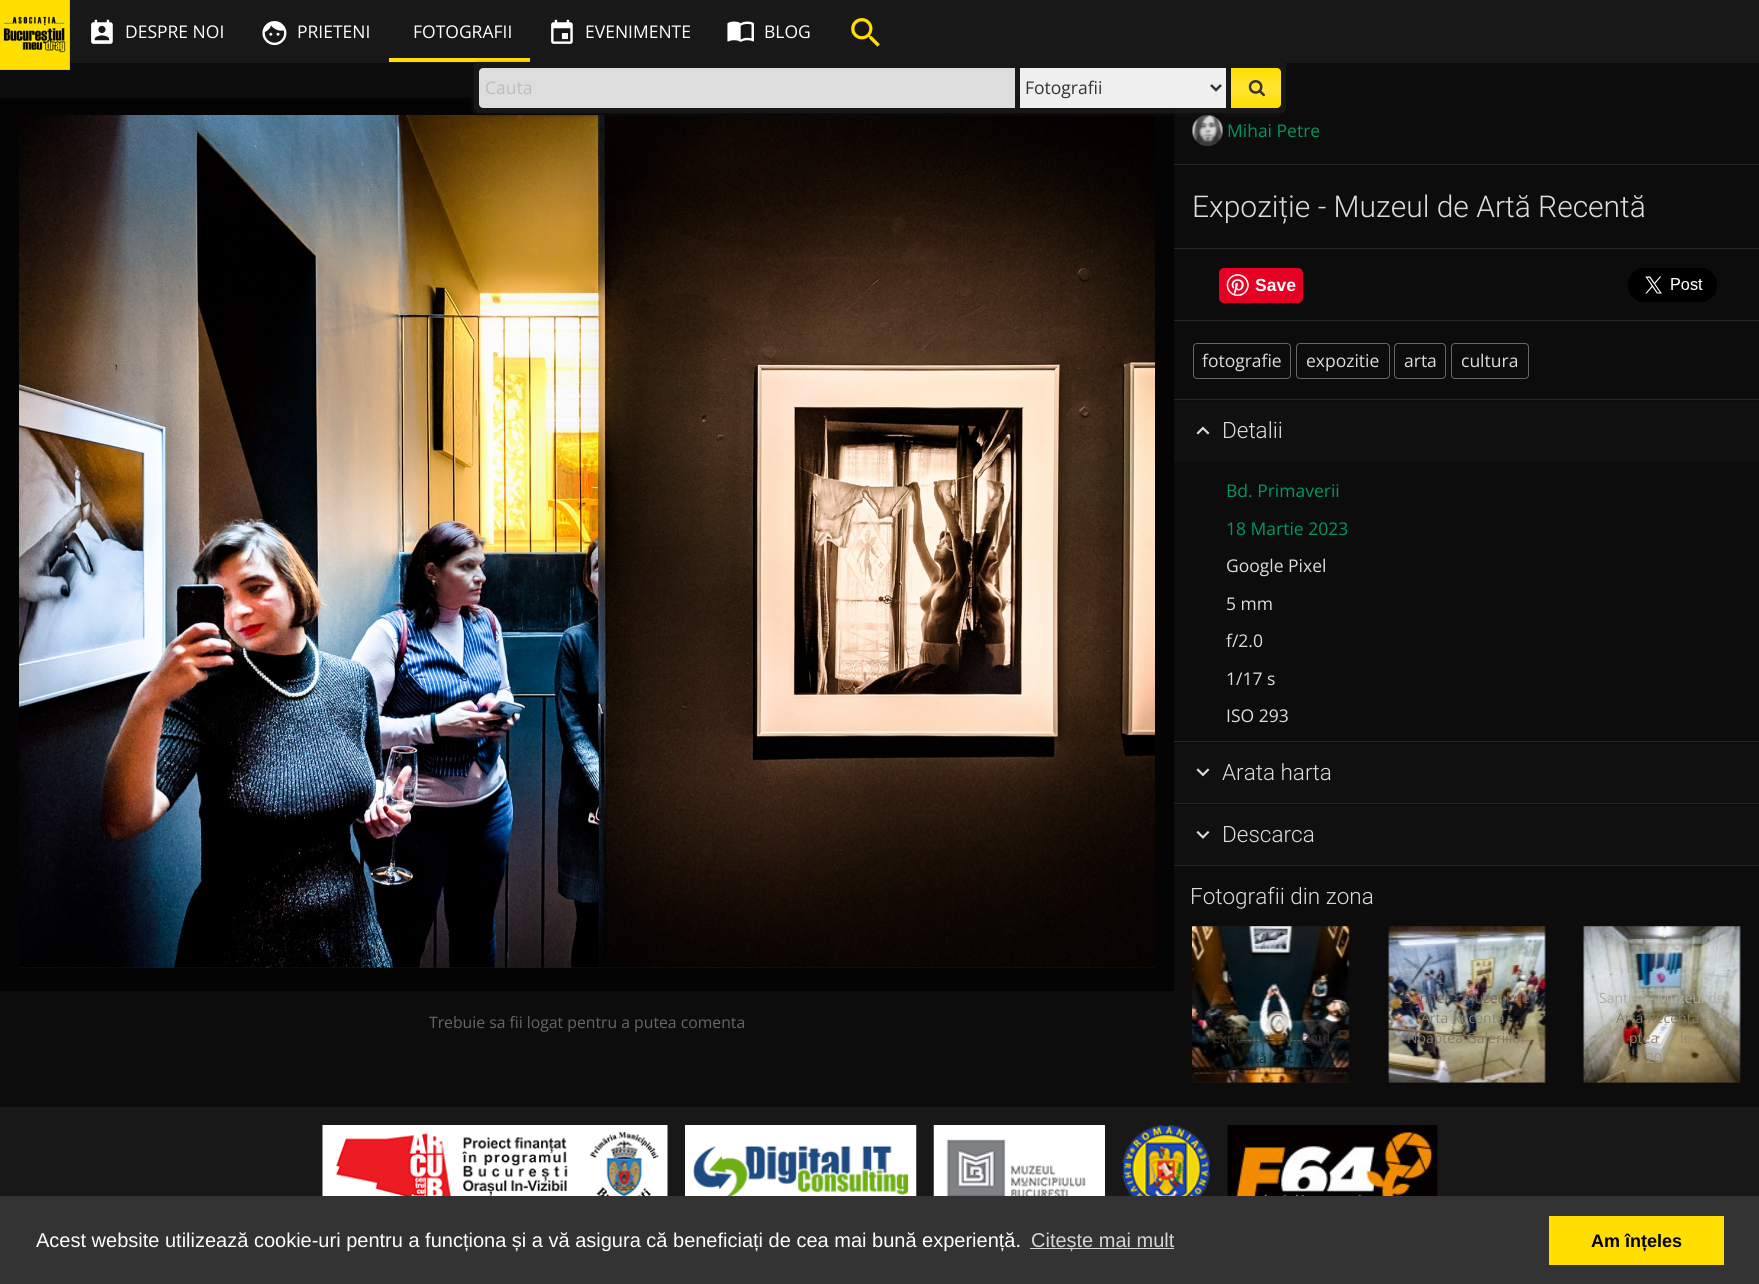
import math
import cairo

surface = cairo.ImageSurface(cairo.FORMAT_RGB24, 1759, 1284)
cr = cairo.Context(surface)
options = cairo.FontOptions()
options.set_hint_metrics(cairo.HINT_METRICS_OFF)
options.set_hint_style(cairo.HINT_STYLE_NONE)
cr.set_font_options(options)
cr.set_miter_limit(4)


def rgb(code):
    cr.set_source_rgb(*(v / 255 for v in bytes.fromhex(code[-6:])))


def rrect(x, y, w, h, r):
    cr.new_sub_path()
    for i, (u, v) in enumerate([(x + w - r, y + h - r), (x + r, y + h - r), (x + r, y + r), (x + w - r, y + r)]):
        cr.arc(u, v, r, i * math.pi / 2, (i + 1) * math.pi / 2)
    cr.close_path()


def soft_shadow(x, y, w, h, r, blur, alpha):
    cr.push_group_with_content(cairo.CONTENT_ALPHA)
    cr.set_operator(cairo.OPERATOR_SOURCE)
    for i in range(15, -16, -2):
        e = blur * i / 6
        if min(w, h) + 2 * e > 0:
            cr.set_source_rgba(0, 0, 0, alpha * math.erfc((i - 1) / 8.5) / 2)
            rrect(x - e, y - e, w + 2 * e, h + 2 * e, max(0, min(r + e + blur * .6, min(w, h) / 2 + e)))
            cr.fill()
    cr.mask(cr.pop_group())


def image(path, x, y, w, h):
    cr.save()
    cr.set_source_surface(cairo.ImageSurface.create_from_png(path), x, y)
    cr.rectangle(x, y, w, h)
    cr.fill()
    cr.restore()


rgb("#0c0c0c")
cr.paint()
rgb("#181818")
cr.rectangle(70, 0, 1689, 63)
cr.fill()
rgb("#ffde00")
cr.rectangle(0, 0, 69, 69)
cr.fill()
image("img/1.png", 3, 16, 63, 37)
rgb("#e6c800")
cr.rectangle(69, 0, 1, 70)
cr.fill()
cr.rectangle(0, 69, 70, 1)
cr.fill()
image("img/2.png", 91, 19, 22, 25)
image("img/3.png", 262, 21, 25, 25)
rgb("#ffde00")
cr.rectangle(389, 58, 141, 4)
cr.fill()
image("img/4.png", 551, 19, 22, 25)
image("img/5.png", 727, 21, 27, 21)
image("img/6.png", 851, 18, 29, 29)
rgb("#040404")
cr.rectangle(0, 98, 1174, 893)
cr.fill()
rgb("#181818")
cr.rectangle(19, 967, 1136, 1)
cr.fill()
image("img/8.png", 19, 115, 1136, 853)
image("img/9.png", 1192, 115, 31, 31)
cr.save()
cr.set_fill_rule(cairo.FILL_RULE_EVEN_ODD)
cr.new_path()
cr.move_to(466, 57)
cr.line_to(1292, 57)
cr.line_to(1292, 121)
cr.line_to(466, 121)
cr.close_path()
cr.move_to(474, 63)
cr.line_to(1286, 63)
cr.line_to(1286, 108)
cr.curve_to(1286, 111, 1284, 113, 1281, 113)
cr.line_to(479, 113)
cr.curve_to(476, 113, 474, 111, 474, 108)
cr.close_path()
cr.clip()
rgb("#111111")
soft_shadow(473, 64, 812, 50, 5, 2, 1)
cr.restore()
cr.set_source_rgba(0.098, 0.098, 0.098, 0.95)
cr.new_path()
cr.move_to(474, 63)
cr.line_to(1286, 63)
cr.line_to(1286, 108)
cr.curve_to(1286, 111, 1284, 113, 1281, 113)
cr.line_to(479, 113)
cr.curve_to(476, 113, 474, 111, 474, 108)
cr.close_path()
cr.fill()
rgb("#dddddd")
cr.new_path()
cr.move_to(483, 68)
cr.line_to(1015, 68)
cr.line_to(1015, 108)
cr.line_to(483, 108)
cr.curve_to(481, 108, 479, 106, 479, 104)
cr.line_to(479, 72)
cr.curve_to(479, 70, 481, 68, 483, 68)
cr.close_path()
cr.fill()
rgb("#efefef")
cr.rectangle(1020, 68, 206, 40)
cr.fill()
cr.new_path()
cr.move_to(1211, 85)
cr.line_to(1216, 90)
cr.line_to(1221, 85)
rgb("#333333")
cr.set_line_width(2.5)
cr.stroke()
gradient = cairo.LinearGradient(1256, 68, 1256, 108)
gradient.add_color_stop_rgba(0, 1, 0.871, 0, 1)
gradient.add_color_stop_rgba(0.5, 1, 0.898, 0.2, 1)
gradient.add_color_stop_rgba(1, 1, 0.871, 0, 1)
cr.set_source(gradient)
cr.new_path()
cr.move_to(1231, 68)
cr.line_to(1277, 68)
cr.curve_to(1279, 68, 1281, 70, 1281, 72)
cr.line_to(1281, 104)
cr.curve_to(1281, 106, 1279, 108, 1277, 108)
cr.line_to(1231, 108)
cr.close_path()
cr.fill()
image("img/7.png", 1248, 80, 17, 17)
rgb("#262626")
cr.rectangle(1174, 164, 585, 1)
cr.fill()
cr.rectangle(1174, 248, 585, 1)
cr.fill()
rgb("#e60023")
rrect(1219, 268, 84, 35, 5)
cr.fill()
image("img/10.png", 1226, 274, 23, 22)
image("img/11.png", 1628, 268, 89, 34)
rgb("#262626")
cr.rectangle(1174, 320, 585, 1)
cr.fill()
rrect(1193.5, 343.5, 97, 35, 3.5)
rgb("#666666")
cr.set_line_width(1)
cr.stroke()
rrect(1296.5, 343.5, 93, 35, 3.5)
cr.stroke()
rrect(1394.5, 343.5, 51, 35, 3.5)
cr.stroke()
rrect(1451.5, 343.5, 77, 35, 3.5)
cr.stroke()
rgb("#262626")
cr.rectangle(1174, 399, 585, 1)
cr.fill()
rgb("#101010")
cr.rectangle(1174, 401, 585, 60)
cr.fill()
image("img/12.png", 1196, 426, 14, 9)
rgb("#262626")
cr.rectangle(1174, 741, 585, 1)
cr.fill()
rgb("#101010")
cr.rectangle(1174, 744, 585, 59)
cr.fill()
image("img/13.png", 1196, 768, 14, 9)
rgb("#262626")
cr.rectangle(1174, 803, 585, 1)
cr.fill()
rgb("#101010")
cr.rectangle(1174, 805, 585, 60)
cr.fill()
image("img/14.png", 1196, 831, 14, 8)
rgb("#262626")
cr.rectangle(1174, 865, 585, 1)
cr.fill()
rgb("#181818")
cr.rectangle(1193, 926, 156, 157)
cr.fill()
image("img/15.png", 1192, 926, 158, 157)
cr.rectangle(1389, 926, 156, 157)
cr.fill()
image("img/16.png", 1388, 926, 158, 157)
cr.rectangle(1584, 926, 156, 157)
cr.fill()
image("img/17.png", 1583, 926, 158, 157)
cr.rectangle(0, 1107, 1759, 89)
cr.fill()
image("img/18.png", 322, 1125, 258, 71)
image("img/19.png", 580, 1125, 88, 71)
image("img/20.png", 685, 1125, 232, 71)
image("img/21.png", 933, 1125, 172, 71)
image("img/22.png", 1122, 1125, 88, 71)
image("img/23.png", 1227, 1125, 211, 71)
for x, y, w, h, color in [
    (0, 1196, 1759, 88, "#333333"),
    (1030, 1248, 144, 1, "#d6d6d6"),
    (1549, 1216, 175, 49, "#ffde00"),
]:
    rgb(color)
    cr.rectangle(x, y, w, h)
    cr.fill()
cr.select_font_face("Open Sans")
cr.set_font_size(17.5)
rgb("#ffffff")
for x, y, s in [
    (125, 38, "DESPRE NOI"),
    (297, 38, "PRIETENI"),
    (413, 38, "FOTOGRAFII"),
    (585, 38, "EVENIMENTE"),
    (764, 38, "BLOG"),
]:
    cr.move_to(x, y)
    cr.show_text(s)
rgb("#bdbdbd")
cr.move_to(485, 94)
cr.show_text("Cauta")
rgb("#2f3531")
cr.move_to(1025, 94)
cr.show_text("Fotografii")
rgb("#009666")
cr.move_to(1227, 137)
cr.show_text("Mihai Petre")
cr.select_font_face("Roboto Light")
cr.set_font_size(30)
rgb("#dddddd")
cr.move_to(1192, 217)
cr.show_text("Expoziție - Muzeul de Artă Recentă")
cr.select_font_face("Liberation Sans", cairo.FONT_SLANT_NORMAL, cairo.FONT_WEIGHT_BOLD)
cr.set_font_size(17.5)
rgb("#ffffff")
cr.move_to(1255, 291)
cr.show_text("Save")
cr.select_font_face("Open Sans")
rgb("#dddddd")
for x, y, s in [
    (1202, 367, "fotografie"),
    (1306, 367, "expozitie"),
    (1404, 367, "arta"),
    (1461, 367, "cultura"),
]:
    cr.move_to(x, y)
    cr.show_text(s)
cr.select_font_face("Roboto Light")
cr.set_font_size(22.5)
cr.move_to(1222, 438)
cr.show_text("Detalii")
cr.select_font_face("Open Sans")
cr.set_font_size(17.5)
rgb("#009666")
cr.move_to(1226, 497)
cr.show_text("Bd. Primaverii")
cr.move_to(1226, 535)
cr.show_text("18 Martie 2023")
rgb("#dddddd")
for x, y, s in [
    (1226, 572, "Google Pixel"),
    (1226, 610, "5 mm"),
    (1226, 647, "f/2.0"),
    (1226, 685, "1/17 s"),
    (1226, 722, "ISO 293"),
]:
    cr.move_to(x, y)
    cr.show_text(s)
cr.select_font_face("Roboto Light")
cr.set_font_size(22.5)
for x, y, s in [
    (1222, 780, "Arata harta"),
    (1222, 842, "Descarca"),
    (1190, 904, "Fotografii din zona"),
]:
    cr.move_to(x, y)
    cr.show_text(s)
cr.select_font_face("Open Sans")
cr.set_font_size(14)
rgb("#2f3531")
cr.move_to(1212, 1043)
cr.show_text("Expoziție - Muzeul")
rgb("#12252c")
for x, y, s in [
    (1254, 1063, "tă"),
    (1287, 1063, "c"),
    (1310, 1063, "t"),
]:
    cr.move_to(x, y)
    cr.show_text(s)
rgb("#70645f")
cr.move_to(1404, 1003)
cr.show_text("Santier - Muzeul de")
rgb("#868676")
cr.move_to(1421, 1023)
cr.show_text("Arta Recenta -")
rgb("#837b64")
cr.move_to(1407, 1043)
cr.show_text("Noaptea Galeriilor")
rgb("#acada3")
cr.move_to(1599, 1003)
cr.show_text("Santier - Muzeul de")
rgb("#837b64")
cr.move_to(1616, 1023)
cr.show_text("Arta Recenta -")
rgb("#98846e")
cr.move_to(1629, 1043)
cr.show_text("ptea")
cr.move_to(1680, 1043)
cr.show_text("le")
rgb("#a0967a")
cr.move_to(1646, 1063)
cr.show_text("20")
cr.set_font_size(15.75)
rgb("#666666")
cr.move_to(429, 1028)
cr.show_text("Trebuie sa fii logat pentru a putea comenta")
cr.select_font_face("Liberation Sans")
cr.set_font_size(20)
rgb("#ffffff")
cr.move_to(36, 1247)
cr.show_text("Acest website utilizează cookie-uri pentru a funcționa și a vă asigura că beneficiați de cea mai bună experiență.")
rgb("#d6d6d6")
cr.move_to(1031, 1247)
cr.show_text("Citește mai mult")
cr.select_font_face("Liberation Sans", cairo.FONT_SLANT_NORMAL, cairo.FONT_WEIGHT_BOLD)
cr.set_font_size(18)
rgb("#000000")
cr.move_to(1591, 1247)
cr.show_text("Am înțeles")
surface.write_to_png("page.png")
